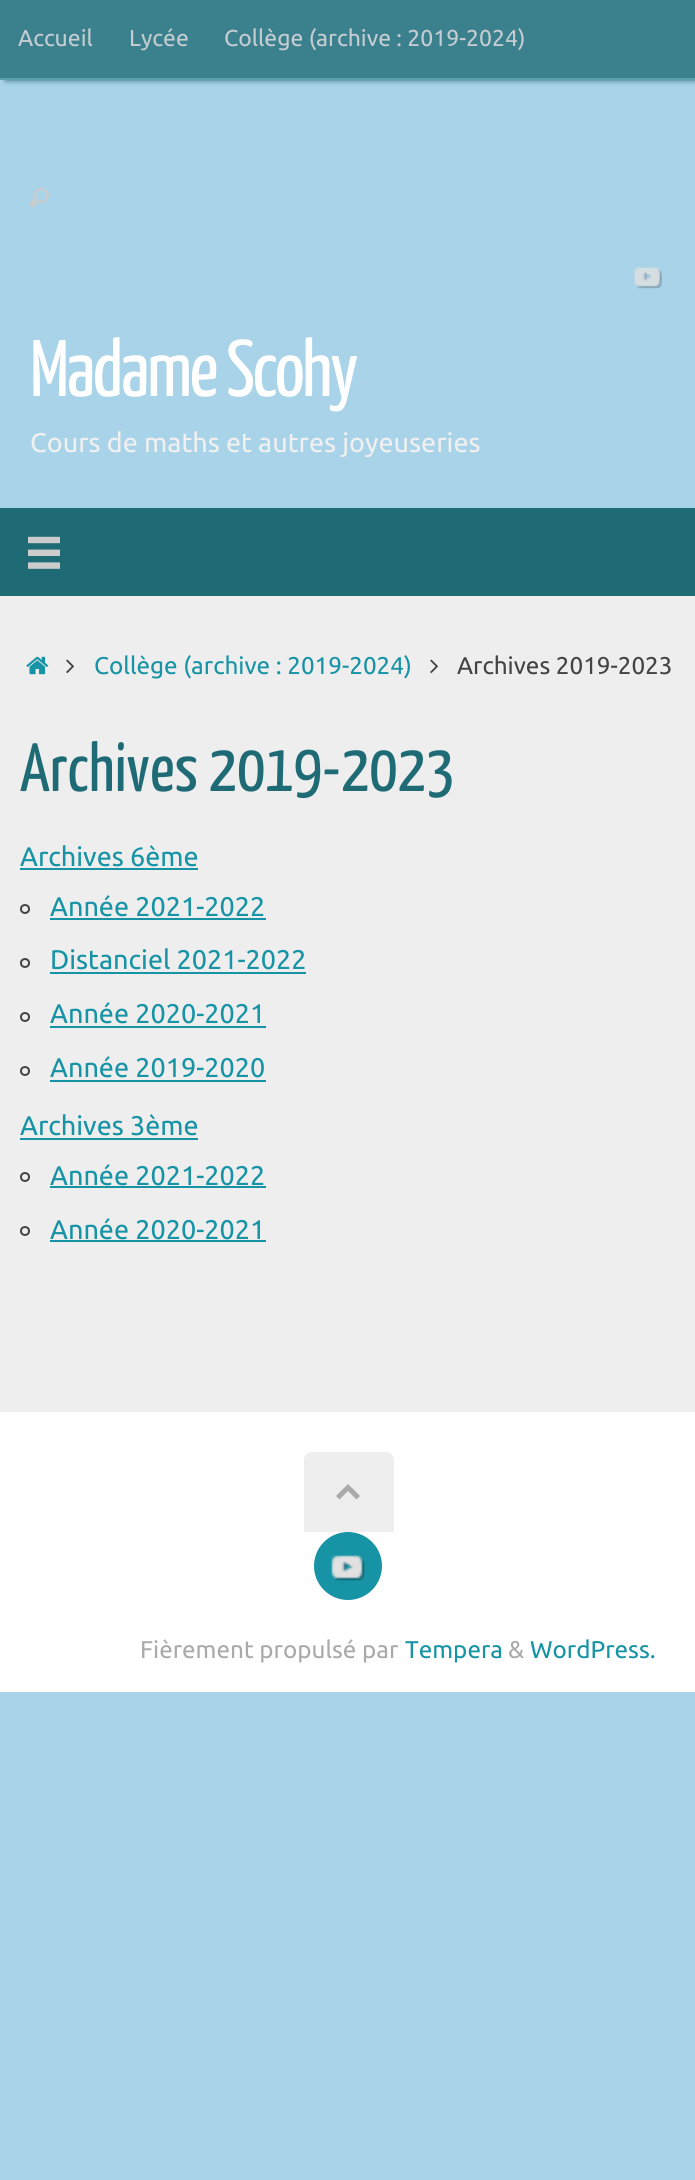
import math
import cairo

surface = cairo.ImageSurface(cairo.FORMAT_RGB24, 695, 2180)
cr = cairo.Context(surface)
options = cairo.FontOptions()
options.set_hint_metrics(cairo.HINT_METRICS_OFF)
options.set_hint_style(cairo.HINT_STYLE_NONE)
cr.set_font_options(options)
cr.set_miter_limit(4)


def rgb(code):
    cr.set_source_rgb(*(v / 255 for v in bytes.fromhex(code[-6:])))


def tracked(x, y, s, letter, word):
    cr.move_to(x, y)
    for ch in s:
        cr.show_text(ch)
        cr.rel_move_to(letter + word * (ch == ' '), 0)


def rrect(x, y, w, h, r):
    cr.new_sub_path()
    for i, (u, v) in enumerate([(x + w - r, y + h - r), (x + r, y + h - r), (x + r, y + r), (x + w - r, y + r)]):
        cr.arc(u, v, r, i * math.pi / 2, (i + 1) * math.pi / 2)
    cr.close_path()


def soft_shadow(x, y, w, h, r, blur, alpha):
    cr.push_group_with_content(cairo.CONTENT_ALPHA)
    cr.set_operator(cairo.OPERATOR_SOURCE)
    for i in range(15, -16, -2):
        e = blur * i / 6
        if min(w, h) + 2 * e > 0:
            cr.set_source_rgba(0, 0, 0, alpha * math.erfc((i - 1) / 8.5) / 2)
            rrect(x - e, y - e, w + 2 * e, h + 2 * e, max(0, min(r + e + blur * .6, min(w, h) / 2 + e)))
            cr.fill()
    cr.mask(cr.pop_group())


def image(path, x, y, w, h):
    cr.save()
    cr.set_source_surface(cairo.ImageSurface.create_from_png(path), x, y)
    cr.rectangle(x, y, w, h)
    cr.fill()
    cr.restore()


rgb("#a9d3e8")
cr.paint()
rgb("#22606d")
soft_shadow(6, 0, 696, 80, 0, 3, 1)
rgb("#3a808d")
cr.rectangle(0, 0, 695, 78)
cr.fill()
rgb("#5aa0ad")
cr.rectangle(0, 78, 695, 2)
cr.fill()
image("img/1.png", 28, 187, 21, 21)
image("img/2.png", 634, 267, 28, 22)
rgb("#1e6b76")
cr.rectangle(0, 508, 695, 88)
cr.fill()
image("img/3.png", 28, 536, 32, 33)
rgb("#eeeeee")
cr.rectangle(0, 596, 695, 816)
cr.fill()
image("img/4.png", 26, 656, 23, 19)
image("img/5.png", 66, 659, 8, 15)
image("img/5.png", 430, 659, 8, 15)
rgb("#1693a5")
cr.rectangle(20, 868, 178, 2)
cr.fill()
cr.arc(25, 909, 4, 0, 2 * math.pi)
rgb("#444444")
cr.stroke()
rgb("#1693a5")
cr.rectangle(50, 918, 216, 2)
cr.fill()
cr.arc(25, 963, 4, 0, 2 * math.pi)
rgb("#444444")
cr.stroke()
rgb("#1693a5")
cr.rectangle(50, 972, 256, 2)
cr.fill()
cr.arc(25, 1017, 4, 0, 2 * math.pi)
rgb("#444444")
cr.stroke()
rgb("#1693a5")
cr.rectangle(50, 1026, 216, 2)
cr.fill()
cr.arc(25, 1071, 4, 0, 2 * math.pi)
rgb("#444444")
cr.stroke()
rgb("#1693a5")
cr.rectangle(50, 1080, 216, 2)
cr.fill()
cr.rectangle(20, 1138, 178, 2)
cr.fill()
cr.arc(25, 1177, 4, 0, 2 * math.pi)
rgb("#444444")
cr.stroke()
rgb("#1693a5")
cr.rectangle(50, 1186, 216, 2)
cr.fill()
cr.arc(25, 1231, 4, 0, 2 * math.pi)
rgb("#444444")
cr.stroke()
rgb("#1693a5")
cr.rectangle(50, 1240, 216, 2)
cr.fill()
rgb("#ffffff")
cr.rectangle(0, 1412, 695, 280)
cr.fill()
rgb("#eeeeee")
cr.new_path()
cr.move_to(312, 1452)
cr.line_to(386, 1452)
cr.curve_to(390.5, 1452, 394, 1455.5, 394, 1460)
cr.line_to(394, 1532)
cr.line_to(304, 1532)
cr.line_to(304, 1460)
cr.curve_to(304, 1455.5, 307.5, 1452, 312, 1452)
cr.close_path()
cr.fill()
rgb("#aaaaaa")
cr.new_path()
cr.move_to(336, 1496)
cr.line_to(348, 1484)
cr.line_to(360, 1496)
cr.line_to(356.5, 1499.5)
cr.line_to(348, 1491)
cr.line_to(339.5, 1499.5)
cr.close_path()
cr.fill()
rgb("#1693a5")
cr.arc(348, 1566, 34, 0, 2 * math.pi)
cr.fill()
image("img/6.png", 331, 1555, 34, 26)
cr.select_font_face("Ubuntu")
cr.set_font_size(23)
rgb("#c5cdd2")
for x, y, s in [
    (18, 46, "Accueil"),
    (129, 46, "Lycée"),
    (224, 46, "Collège (archive : 2019-2024)"),
]:
    cr.move_to(x, y)
    cr.show_text(s)
cr.select_font_face("Yanone Kaffeesatz")
cr.set_font_size(80)
rgb("#ffffff")
tracked(30, 396, "Madame Scohy", -2.4, 0)
cr.select_font_face("Ubuntu")
cr.set_font_size(27)
rgb("#f1f0f0")
cr.move_to(30, 452)
cr.show_text("Cours de maths et autres joyeuseries")
cr.set_font_size(24.25)
rgb("#1693a5")
cr.move_to(94, 674)
cr.show_text("Collège (archive : 2019-2024)")
rgb("#444444")
cr.move_to(457, 674)
cr.show_text("Archives 2019-2023")
cr.select_font_face("Yanone Kaffeesatz")
cr.set_font_size(68)
rgb("#1e6b76")
cr.move_to(20, 791)
cr.show_text("Archives 2019-2023")
cr.select_font_face("Ubuntu")
cr.set_font_size(27)
rgb("#1693a5")
for x, y, s in [
    (20, 866, "Archives 6ème"),
    (50, 916, "Année 2021-2022"),
    (50, 969, "Distanciel 2021-2022"),
    (50, 1023, "Année 2020-2021"),
    (50, 1077, "Année 2019-2020"),
    (20, 1135, "Archives 3ème"),
    (50, 1185, "Année 2021-2022"),
    (50, 1239, "Année 2020-2021"),
]:
    cr.move_to(x, y)
    cr.show_text(s)
cr.set_font_size(24.25)
rgb("#aaaaaa")
cr.move_to(140, 1658)
cr.show_text("Fièrement propulsé par")
rgb("#1693a5")
cr.move_to(405, 1658)
cr.show_text("Tempera")
rgb("#aaaaaa")
cr.move_to(508, 1658)
cr.show_text("&")
rgb("#1693a5")
cr.move_to(530, 1658)
cr.show_text("WordPress.")
surface.write_to_png("page.png")
